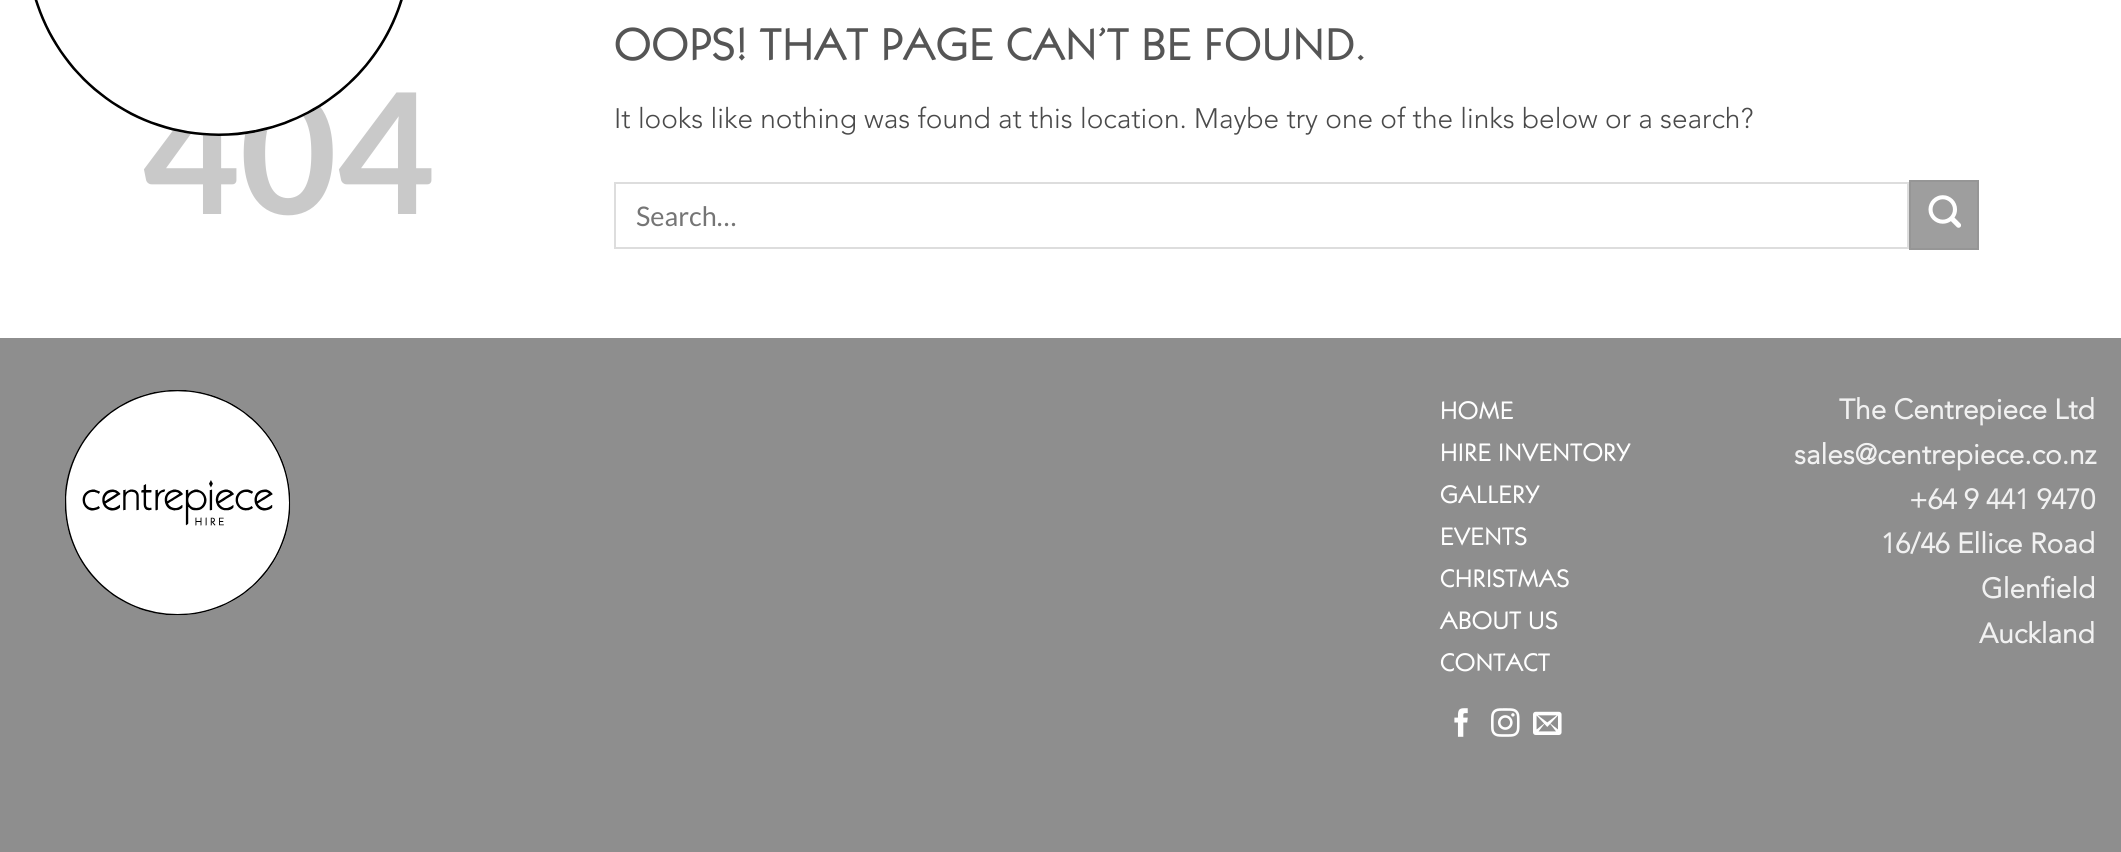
import math
import cairo

surface = cairo.ImageSurface(cairo.FORMAT_RGB24, 2121, 852)
cr = cairo.Context(surface)
options = cairo.FontOptions()
options.set_hint_metrics(cairo.HINT_METRICS_OFF)
options.set_hint_style(cairo.HINT_STYLE_NONE)
cr.set_font_options(options)
cr.set_miter_limit(4)


def rgb(code):
    cr.set_source_rgb(*(v / 255 for v in bytes.fromhex(code[-6:])))


def image(path, x, y, w, h):
    cr.save()
    cr.set_source_surface(cairo.ImageSurface.create_from_png(path), x, y)
    cr.rectangle(x, y, w, h)
    cr.fill()
    cr.restore()


rgb("#ffffff")
cr.paint()
cr.rectangle(615, 183, 1293, 65)
rgb("#dddddd")
cr.stroke()
rgb("#9e9e9e")
cr.rectangle(1910, 181, 68, 68)
cr.fill_preserve()
rgb("#969696")
cr.stroke()
image("img/2.png", 1928, 195, 33, 33)
rgb("#8e8e8e")
cr.rectangle(0, 338, 2121, 514)
cr.fill()
image("img/3.png", 65, 390, 226, 226)
image("img/4.png", 1454, 708, 14, 29)
image("img/5.png", 1491, 708, 29, 29)
image("img/6.png", 1533, 711, 29, 24)
cr.select_font_face("Lato", cairo.FONT_SLANT_NORMAL, cairo.FONT_WEIGHT_BOLD)
cr.set_font_size(168)
rgb("#c9c9c9")
cr.move_to(142, 214)
cr.show_text("404")
image("img/1.png", 34, 0, 369, 136)
cr.select_font_face("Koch")
cr.set_font_size(47.6)
rgb("#555555")
cr.move_to(614, 60)
cr.show_text("OOPS! THAT PAGE CAN’T BE FOUND.")
cr.select_font_face("Avenir Light")
cr.set_font_size(28)
rgb("#4a4a4a")
cr.move_to(614, 128)
cr.show_text("It looks like nothing was found at this location. Maybe try one of the links below or a search?")
cr.select_font_face("Lato")
cr.set_font_size(27)
rgb("#757575")
cr.move_to(636, 226)
cr.show_text("Search…")
cr.select_font_face("Koch")
cr.set_font_size(26.25)
rgb("#ffffff")
for x, y, s in [
    (1440, 419, "HOME"),
    (1440, 461, "HIRE INVENTORY"),
    (1440, 503, "GALLERY"),
    (1440, 545, "EVENTS"),
    (1440, 587, "CHRISTMAS"),
    (1440, 629, "ABOUT US"),
    (1440, 671, "CONTACT"),
]:
    cr.move_to(x, y)
    cr.show_text(s)
cr.select_font_face("Avenir", cairo.FONT_SLANT_NORMAL, cairo.FONT_WEIGHT_BOLD)
cr.set_font_size(28)
rgb("#f1f1f1")
for x, y, s in [
    (1839, 419, "The Centrepiece Ltd"),
    (1794, 464, "sales@centrepiece.co.nz"),
    (1909, 509, "+64 9 441 9470"),
    (1881, 553, "16/46 Ellice Road"),
    (1981, 598, "Glenfield"),
    (1979, 643, "Auckland"),
]:
    cr.move_to(x, y)
    cr.show_text(s)
surface.write_to_png("page.png")
